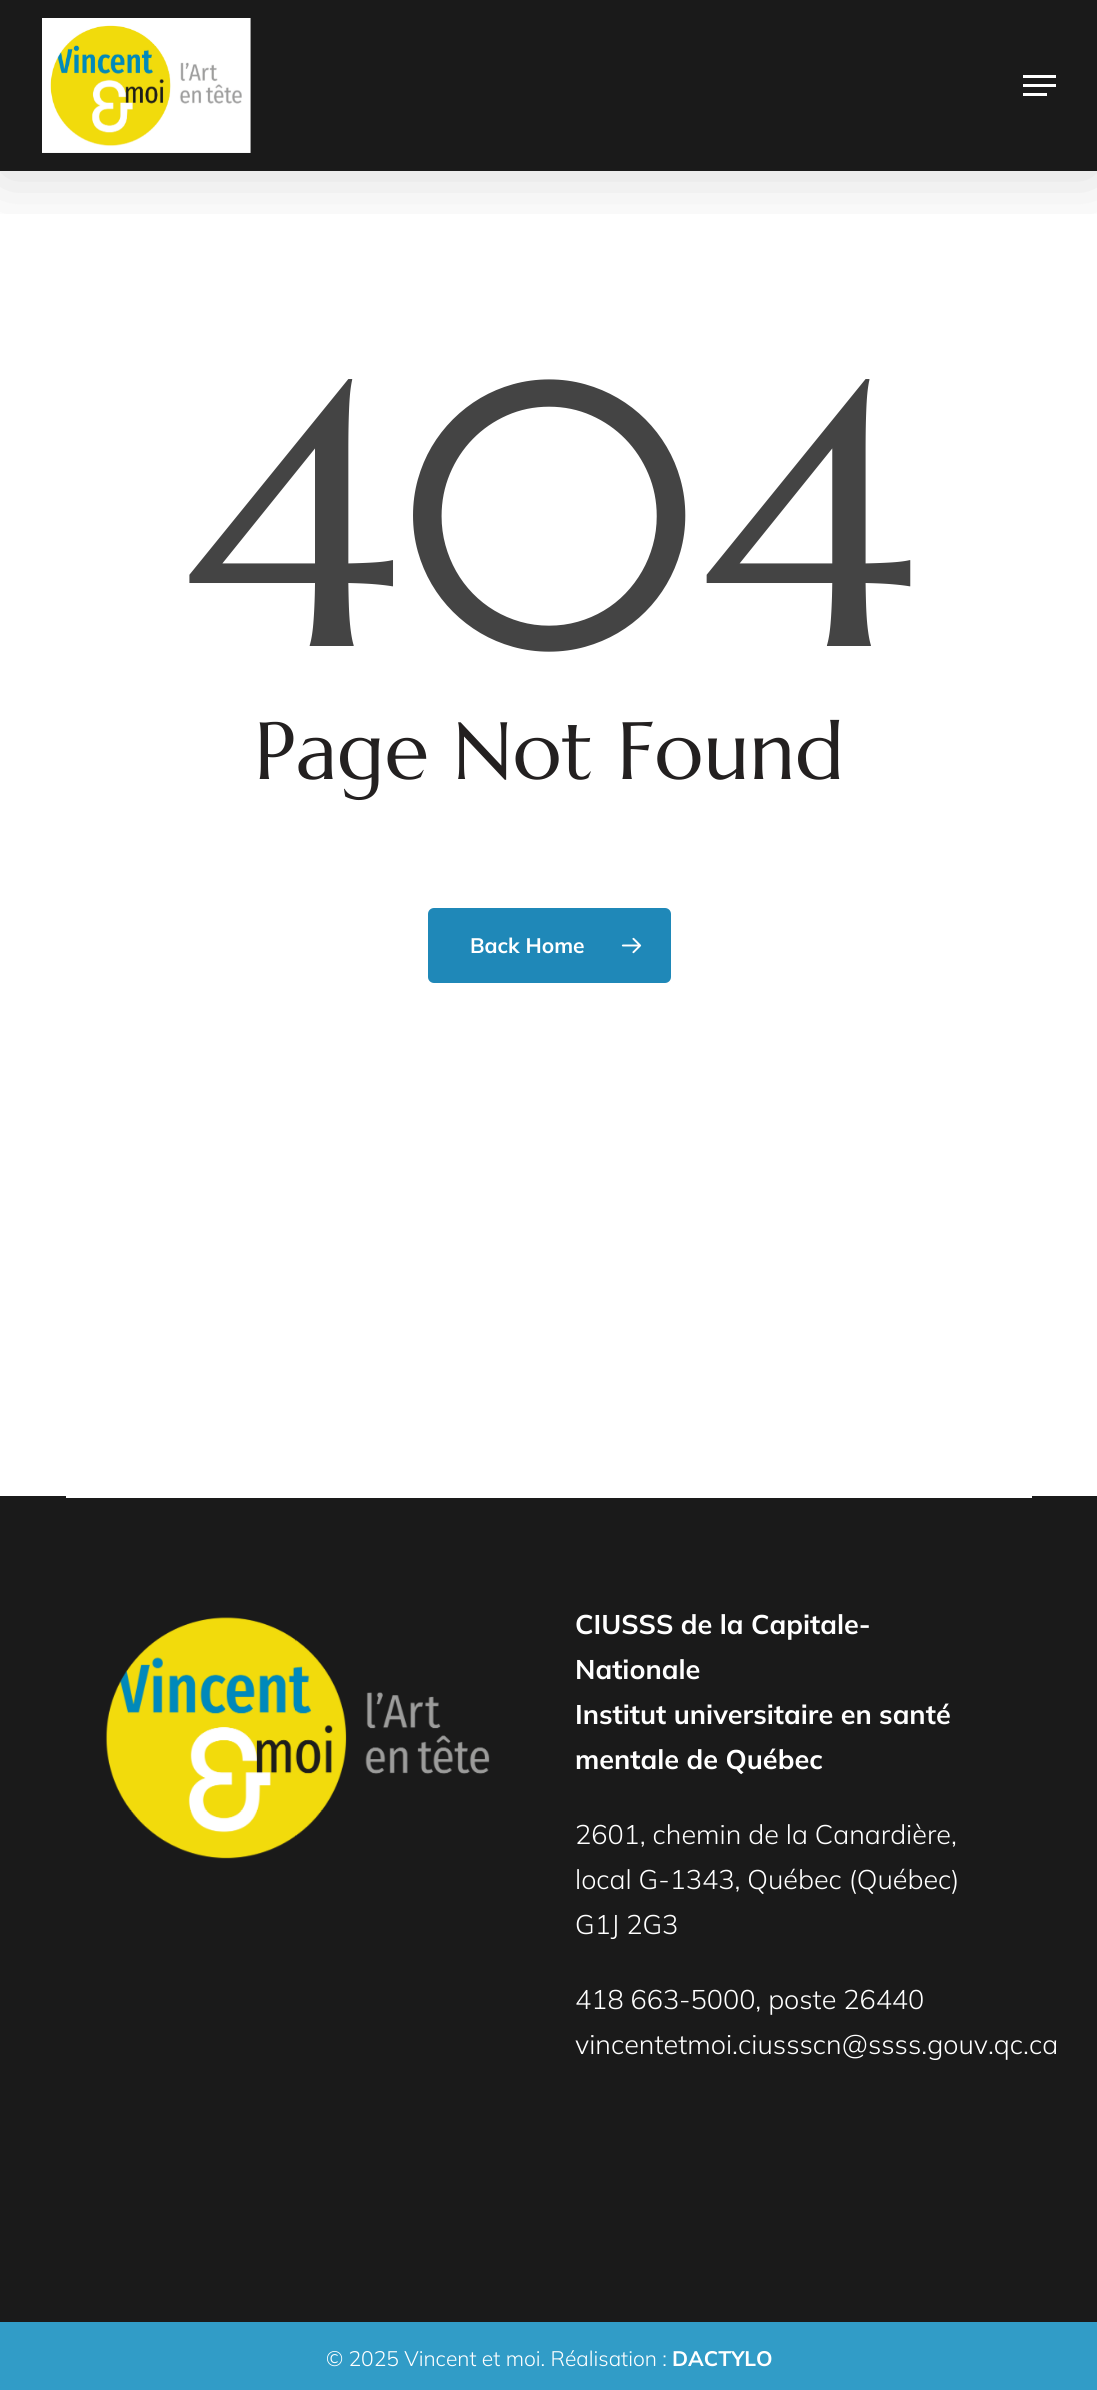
import math
import cairo

surface = cairo.ImageSurface(cairo.FORMAT_RGB24, 1097, 2390)
cr = cairo.Context(surface)
options = cairo.FontOptions()
options.set_hint_metrics(cairo.HINT_METRICS_OFF)
options.set_hint_style(cairo.HINT_STYLE_NONE)
cr.set_font_options(options)
cr.set_miter_limit(4)


def rgb(code):
    cr.set_source_rgb(*(v / 255 for v in bytes.fromhex(code[-6:])))


def rrect(x, y, w, h, r):
    cr.new_sub_path()
    for i, (u, v) in enumerate([(x + w - r, y + h - r), (x + r, y + h - r), (x + r, y + r), (x + w - r, y + r)]):
        cr.arc(u, v, r, i * math.pi / 2, (i + 1) * math.pi / 2)
    cr.close_path()


def soft_shadow(x, y, w, h, r, blur, alpha):
    cr.push_group_with_content(cairo.CONTENT_ALPHA)
    cr.set_operator(cairo.OPERATOR_SOURCE)
    for i in range(15, -16, -2):
        e = blur * i / 6
        if min(w, h) + 2 * e > 0:
            cr.set_source_rgba(0, 0, 0, alpha * math.erfc((i - 1) / 8.5) / 2)
            rrect(x - e, y - e, w + 2 * e, h + 2 * e, max(0, min(r + e + blur * .6, min(w, h) / 2 + e)))
            cr.fill()
    cr.mask(cr.pop_group())


def image(path, x, y, w, h):
    cr.save()
    cr.set_source_surface(cairo.ImageSurface.create_from_png(path), x, y)
    cr.rectangle(x, y, w, h)
    cr.fill()
    cr.restore()


rgb("#ffffff")
cr.paint()
rgb("#1a1a1a")
cr.rectangle(0, 0, 1097, 171)
cr.fill()
cr.save()
cr.rectangle(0, 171, 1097, 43)
cr.clip()
rgb("#000000")
soft_shadow(0, 5, 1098, 171, 0, 34, 0.15)
cr.restore()
image("img/1.png", 42, 18, 209, 135)
for x, y, w, h, color in [
    (1023, 75, 33, 3, "#ffffff"),
    (1023, 93, 24, 3, "#ffffff"),
    (1023, 84, 33, 3, "#ffffff"),
]:
    rgb(color)
    cr.rectangle(x, y, w, h)
    cr.fill()
rgb("#1f88b8")
rrect(428, 908, 243, 75, 6)
cr.fill()
image("img/2.png", 621, 937, 21, 17)
rgb("#1a1a1a")
cr.rectangle(0, 1496, 1097, 826)
cr.fill()
rgb("#ffffff")
cr.rectangle(66, 1496, 966, 2)
cr.fill()
image("img/3.png", 105, 1617, 385, 242)
rgb("#319cc7")
cr.rectangle(0, 2322, 1097, 68)
cr.fill()
cr.select_font_face("Marcellus")
cr.set_font_size(375)
rgb("#444444")
cr.move_to(183, 646)
cr.show_text("404")
cr.set_font_size(81)
rgb("#232020")
cr.move_to(254, 779)
cr.show_text("Page Not Found")
cr.select_font_face("Mulish", cairo.FONT_SLANT_NORMAL, cairo.FONT_WEIGHT_BOLD)
cr.set_font_size(21)
rgb("#ffffff")
cr.move_to(470, 953)
cr.show_text("Back Home")
cr.set_font_size(27)
for x, y, s in [
    (575, 1634, "CIUSSS de la Capitale-"),
    (575, 1679, "Nationale"),
    (575, 1724, "Institut universitaire en santé"),
    (575, 1769, "mentale de Québec"),
]:
    cr.move_to(x, y)
    cr.show_text(s)
cr.select_font_face("Mulish Light")
for x, y, s in [
    (575, 1844, "2601, chemin de la Canardière,"),
    (575, 1889, "local G-1343, Québec (Québec)"),
    (575, 1934, "G1J 2G3"),
    (575, 2009, "418 663-5000, poste 26440"),
    (575, 2054, "vincentetmoi.ciussscn@ssss.gouv.qc.ca"),
]:
    cr.move_to(x, y)
    cr.show_text(s)
cr.set_font_size(21)
cr.move_to(326, 2366)
cr.show_text("© 2025 Vincent et moi. Réalisation :")
cr.select_font_face("Mulish", cairo.FONT_SLANT_NORMAL, cairo.FONT_WEIGHT_BOLD)
cr.move_to(672, 2366)
cr.show_text("DACTYLO")
surface.write_to_png("page.png")
